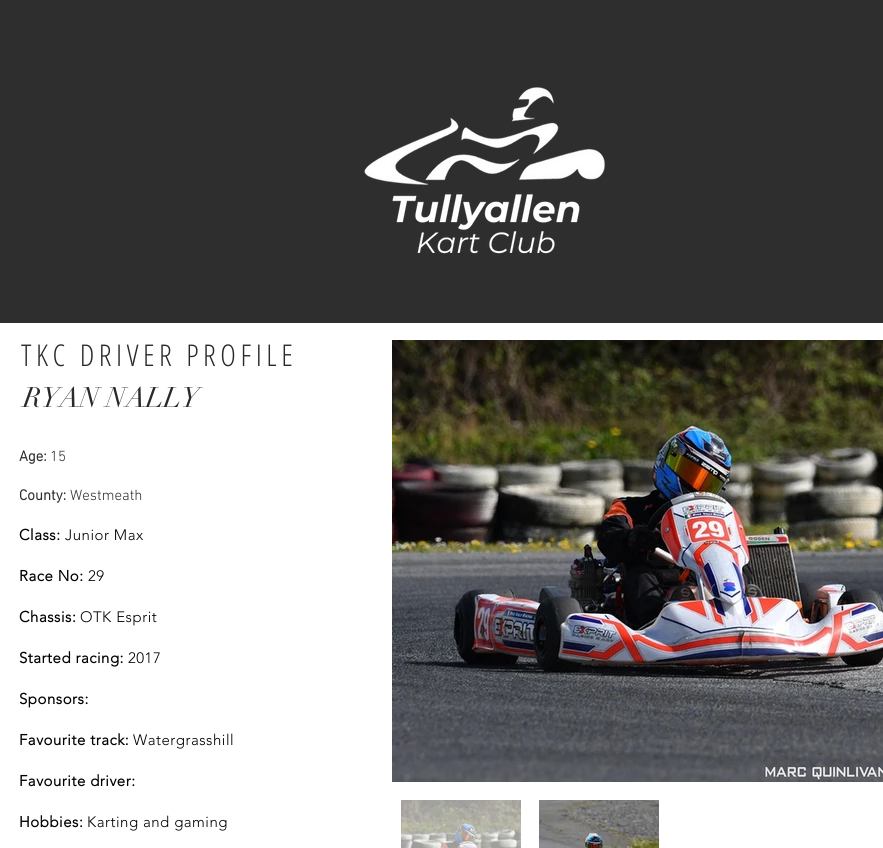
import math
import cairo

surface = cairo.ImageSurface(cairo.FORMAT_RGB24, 883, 848)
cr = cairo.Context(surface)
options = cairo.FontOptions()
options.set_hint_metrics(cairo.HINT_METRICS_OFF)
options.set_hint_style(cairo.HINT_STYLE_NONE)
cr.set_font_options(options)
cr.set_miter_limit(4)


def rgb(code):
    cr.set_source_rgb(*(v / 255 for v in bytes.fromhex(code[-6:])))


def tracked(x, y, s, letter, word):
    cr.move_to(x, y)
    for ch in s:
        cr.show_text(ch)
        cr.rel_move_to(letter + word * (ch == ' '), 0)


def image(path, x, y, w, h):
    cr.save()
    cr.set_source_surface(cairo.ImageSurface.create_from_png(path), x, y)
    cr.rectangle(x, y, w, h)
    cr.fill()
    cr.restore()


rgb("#2f2e2e")
cr.paint()
image("img/1.png", 364, 87, 241, 167)
rgb("#ffffff")
cr.rectangle(0, 323, 883, 525)
cr.fill()
image("img/2.png", 392, 340, 491, 442)
image("img/3.png", 401, 800, 120, 48)
image("img/4.png", 539, 800, 120, 48)
cr.select_font_face("Open Sans Condensed Light")
cr.set_font_size(30)
rgb("#292929")
tracked(21, 366, "TKC DRIVER PROFILE", 4.5, 0)
cr.select_font_face("didot")
cr.set_font_size(28)
cr.move_to(23, 407)
cr.show_text("RYAN NALLY")
cr.select_font_face("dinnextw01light", cairo.FONT_SLANT_NORMAL, cairo.FONT_WEIGHT_BOLD)
cr.set_font_size(15)
rgb("#2f2e2e")
cr.move_to(19, 461)
cr.show_text("Age:")
cr.select_font_face("dinnextw01light Light")
cr.move_to(50, 461)
cr.show_text("15")
cr.select_font_face("dinnextw01light", cairo.FONT_SLANT_NORMAL, cairo.FONT_WEIGHT_BOLD)
cr.move_to(19, 500)
cr.show_text("County:")
cr.select_font_face("dinnextw01light Light")
cr.move_to(70, 500)
cr.show_text("Westmeath")
cr.select_font_face("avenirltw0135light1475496", cairo.FONT_SLANT_NORMAL, cairo.FONT_WEIGHT_BOLD)
rgb("#000000")
tracked(19, 540, "Class:", 0.5, 0)
cr.select_font_face("avenirltw0135light1475496 Light")
tracked(65, 540, "Junior Max", 0.5, 0)
cr.select_font_face("avenirltw0135light1475496", cairo.FONT_SLANT_NORMAL, cairo.FONT_WEIGHT_BOLD)
tracked(19, 581, "Race No:", 0.5, 0)
cr.select_font_face("avenirltw0135light1475496 Light")
tracked(88, 581, "29", 0.5, 0)
cr.select_font_face("avenirltw0135light1475496", cairo.FONT_SLANT_NORMAL, cairo.FONT_WEIGHT_BOLD)
tracked(19, 622, "Chassis:", 0.5, 0)
cr.select_font_face("avenirltw0135light1475496 Light")
tracked(80, 622, "OTK Esprit", 0.5, 0)
cr.select_font_face("avenirltw0135light1475496", cairo.FONT_SLANT_NORMAL, cairo.FONT_WEIGHT_BOLD)
tracked(19, 663, "Started racing:", 0.5, 0)
cr.select_font_face("avenirltw0135light1475496 Light")
tracked(128, 663, "2017", 0.5, 0)
cr.select_font_face("avenirltw0135light1475496", cairo.FONT_SLANT_NORMAL, cairo.FONT_WEIGHT_BOLD)
tracked(19, 704, "Sponsors:", 0.5, 0)
tracked(19, 745, "Favourite track:", 0.5, 0)
cr.select_font_face("avenirltw0135light1475496 Light")
tracked(133, 745, "Watergrasshill", 0.5, 0)
cr.select_font_face("avenirltw0135light1475496", cairo.FONT_SLANT_NORMAL, cairo.FONT_WEIGHT_BOLD)
tracked(19, 786, "Favourite driver:", 0.5, 0)
tracked(19, 827, "Hobbies:", 0.5, 0)
cr.select_font_face("avenirltw0135light1475496 Light")
tracked(87, 827, "Karting and gaming", 0.5, 0)
surface.write_to_png("page.png")
